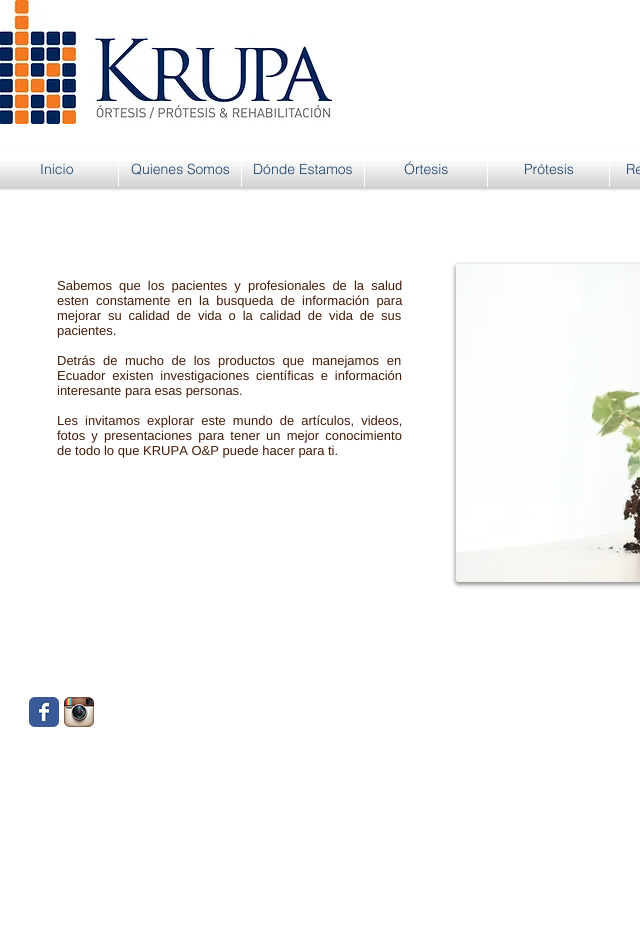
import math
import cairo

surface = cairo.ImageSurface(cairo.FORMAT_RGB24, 640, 941)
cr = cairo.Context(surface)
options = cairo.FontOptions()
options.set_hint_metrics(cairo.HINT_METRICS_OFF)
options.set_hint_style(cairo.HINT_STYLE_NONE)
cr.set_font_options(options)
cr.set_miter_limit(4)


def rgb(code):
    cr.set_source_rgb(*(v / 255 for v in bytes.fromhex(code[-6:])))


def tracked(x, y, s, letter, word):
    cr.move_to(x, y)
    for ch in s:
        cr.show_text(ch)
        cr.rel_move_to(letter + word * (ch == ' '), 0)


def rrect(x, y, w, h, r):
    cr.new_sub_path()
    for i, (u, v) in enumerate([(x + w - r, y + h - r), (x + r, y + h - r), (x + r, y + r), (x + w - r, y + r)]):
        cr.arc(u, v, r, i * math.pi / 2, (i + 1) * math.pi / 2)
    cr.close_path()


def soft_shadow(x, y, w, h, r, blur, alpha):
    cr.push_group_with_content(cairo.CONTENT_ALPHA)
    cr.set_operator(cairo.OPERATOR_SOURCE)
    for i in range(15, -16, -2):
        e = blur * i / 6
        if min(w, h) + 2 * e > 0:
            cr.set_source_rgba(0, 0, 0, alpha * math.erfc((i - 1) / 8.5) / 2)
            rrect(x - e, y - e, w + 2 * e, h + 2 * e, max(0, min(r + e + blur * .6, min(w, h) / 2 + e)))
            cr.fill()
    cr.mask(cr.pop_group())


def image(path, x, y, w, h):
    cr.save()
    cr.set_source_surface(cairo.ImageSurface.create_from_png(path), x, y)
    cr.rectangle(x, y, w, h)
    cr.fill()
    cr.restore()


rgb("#ffffff")
cr.paint()
cr.save()
cr.rectangle(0, 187, 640, 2)
cr.clip()
rgb("#000000")
soft_shadow(0, 0, 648, 184, 0, 2.5, 0.7)
cr.restore()
image("img/1.png", 0, 0, 332, 124)
rgb("#a29e9e")
soft_shadow(-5, 153, 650, 36, 0, 1.5, 0.6)
rgb("#ffffff")
cr.rectangle(0, 151, 640, 36)
cr.fill()
rgb("#000000")
soft_shadow(456, 266, 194, 318, 2, 2.5, 0.53)
image("img/14.png", 456, 264, 184, 318)
image("img/15.png", 29, 697, 30, 30)
image("img/16.png", 64, 697, 30, 30)
cr.select_font_face("helvetica Light")
cr.set_font_size(14)
rgb("#002e5d")
cr.move_to(40, 174)
cr.show_text("Inicio")
image("img/2.png", 41, 164, 32, 10)
image("img/3.png", 0, 161, 118, 26)
cr.move_to(131, 174)
cr.show_text("Quienes Somos")
image("img/4.png", 131, 163, 98, 12)
image("img/5.png", 119, 161, 122, 26)
cr.move_to(253, 174)
cr.show_text("Dónde Estamos")
image("img/6.png", 254, 164, 98, 10)
image("img/7.png", 242, 161, 122, 26)
cr.move_to(404, 174)
cr.show_text("Órtesis")
image("img/8.png", 404, 161, 44, 14)
image("img/9.png", 365, 161, 122, 26)
cr.move_to(524, 174)
cr.show_text("Prótesis")
image("img/10.png", 524, 164, 49, 10)
image("img/11.png", 488, 161, 121, 26)
cr.move_to(626, 174)
cr.show_text("Re")
image("img/12.png", 627, 164, 13, 10)
image("img/13.png", 610, 161, 30, 26)
cr.select_font_face("Liberation Sans")
cr.set_font_size(13)
rgb("#441c08")
tracked(57, 290, "Sabemos que los pacientes y profesionales de la salud", 0, 3.5)
tracked(57, 305, "esten constamente en la busqueda de información para", 0, 3.5)
tracked(57, 320, "mejorar su calidad de vida o la calidad de vida de sus", 0, 3.25)
cr.move_to(57, 335)
cr.show_text("pacientes.")
tracked(57, 365, "Detrás de mucho de los productos que manejamos en", 0, 4)
tracked(57, 380, "Ecuador existen investigaciones científicas e información", 0, 3.25)
cr.move_to(57, 395)
cr.show_text("interesante para esas personas.")
tracked(57, 425, "Les invitamos explorar este mundo de artículos, videos,", 0, 3.5)
tracked(57, 440, "fotos y presentaciones para tener un mejor conocimiento", 0, 2.5)
cr.move_to(57, 455)
cr.show_text("de todo lo que KRUPA O&P puede hacer para ti.")
surface.write_to_png("page.png")
